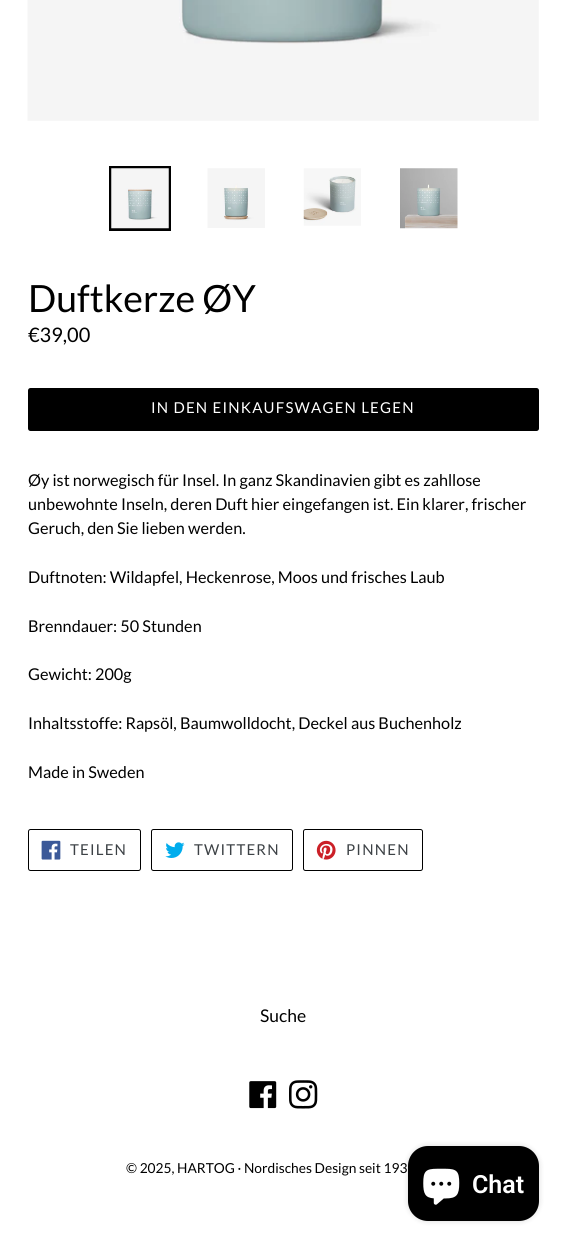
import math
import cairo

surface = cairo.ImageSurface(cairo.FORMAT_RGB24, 566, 1247)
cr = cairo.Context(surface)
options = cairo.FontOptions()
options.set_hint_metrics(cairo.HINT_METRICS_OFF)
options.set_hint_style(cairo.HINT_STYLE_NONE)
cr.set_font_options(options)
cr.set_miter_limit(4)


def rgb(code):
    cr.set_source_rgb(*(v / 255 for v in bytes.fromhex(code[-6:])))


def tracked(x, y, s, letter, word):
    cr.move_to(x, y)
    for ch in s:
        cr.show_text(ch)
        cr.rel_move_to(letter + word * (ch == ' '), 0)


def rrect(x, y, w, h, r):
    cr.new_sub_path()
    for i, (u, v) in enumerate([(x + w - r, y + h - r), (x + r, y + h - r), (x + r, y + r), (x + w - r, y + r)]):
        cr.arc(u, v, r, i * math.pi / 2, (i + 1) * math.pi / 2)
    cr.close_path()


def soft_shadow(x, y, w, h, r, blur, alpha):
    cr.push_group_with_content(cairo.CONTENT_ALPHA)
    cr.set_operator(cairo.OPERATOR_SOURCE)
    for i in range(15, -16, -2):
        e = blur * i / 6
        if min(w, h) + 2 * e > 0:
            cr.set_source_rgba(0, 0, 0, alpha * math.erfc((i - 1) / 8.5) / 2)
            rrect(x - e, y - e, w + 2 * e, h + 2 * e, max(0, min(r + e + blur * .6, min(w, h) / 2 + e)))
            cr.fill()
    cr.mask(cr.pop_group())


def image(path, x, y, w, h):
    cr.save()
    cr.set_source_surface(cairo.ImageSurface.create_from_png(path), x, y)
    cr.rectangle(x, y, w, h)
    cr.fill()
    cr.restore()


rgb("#ffffff")
cr.paint()
image("img/1.png", 27, 0, 512, 121)
cr.rectangle(110.5, 167.5, 59, 62)
rgb("#000000")
cr.set_line_width(3)
cr.stroke()
image("img/2.png", 111, 168, 58, 61)
image("img/3.png", 207, 168, 58, 60)
image("img/4.png", 303, 168, 58, 58)
image("img/5.png", 400, 168, 58, 61)
rrect(28, 388, 511, 43, 2.5)
cr.fill()
rrect(28.5, 829.5, 112, 41, 2)
cr.set_line_width(1)
cr.stroke()
image("img/6.png", 41, 840, 20, 20)
rrect(151.5, 829.5, 141, 41, 2)
cr.stroke()
image("img/7.png", 165, 842, 20, 16)
rrect(303.5, 829.5, 119, 41, 2)
cr.stroke()
image("img/8.png", 316, 840, 20, 20)
image("img/9.png", 249, 1081, 28, 28)
image("img/10.png", 289, 1080, 29, 29)
rgb("#000000")
soft_shadow(408, 1146, 131, 75, 20, 3, 0.15)
rgb("#000000")
rrect(408, 1146, 131, 75, 20)
cr.fill()
image("img/11.png", 423, 1168, 37, 37)
cr.select_font_face("Lato")
cr.set_font_size(37.5)
cr.move_to(28, 312)
cr.show_text("Duftkerze ØY")
cr.set_font_size(20)
cr.move_to(28, 342)
cr.show_text("€39,00")
cr.set_font_size(15)
rgb("#ffffff")
tracked(151, 413, "IN DEN EINKAUFSWAGEN LEGEN", 1.2, 0)
cr.set_font_size(16.25)
rgb("#000000")
for x, y, s in [
    (28, 486, "Øy ist norwegisch für Insel. In ganz Skandinavien gibt es zahllose"),
    (28, 510, "unbewohnte Inseln, deren Duft hier eingefangen ist. Ein klarer, frischer"),
    (28, 534, "Geruch, den Sie lieben werden."),
    (28, 583, "Duftnoten: Wildapfel, Heckenrose, Moos und frisches Laub"),
    (28, 632, "Brenndauer: 50 Stunden"),
    (28, 680, "Gewicht: 200g"),
    (28, 729, "Inhaltsstoffe: Rapsöl, Baumwolldocht, Deckel aus Buchenholz"),
    (28, 778, "Made in Sweden"),
]:
    cr.move_to(x, y)
    cr.show_text(s)
cr.set_font_size(15)
rgb("#3d4246")
for x, y, s in [
    (70, 855, "TEILEN"),
    (194, 855, "TWITTERN"),
    (346, 855, "PINNEN"),
]:
    tracked(x, y, s, 1.2, 0)
cr.set_font_size(17.5)
rgb("#000000")
cr.move_to(260, 1022)
cr.show_text("Suche")
cr.set_font_size(13.75)
cr.move_to(126, 1173)
cr.show_text("© 2025, HARTOG · Nordisches Design seit 193")
cr.select_font_face("Roboto SemiBold")
cr.set_font_size(25)
rgb("#ffffff")
cr.move_to(472, 1193)
cr.show_text("Chat")
surface.write_to_png("page.png")
